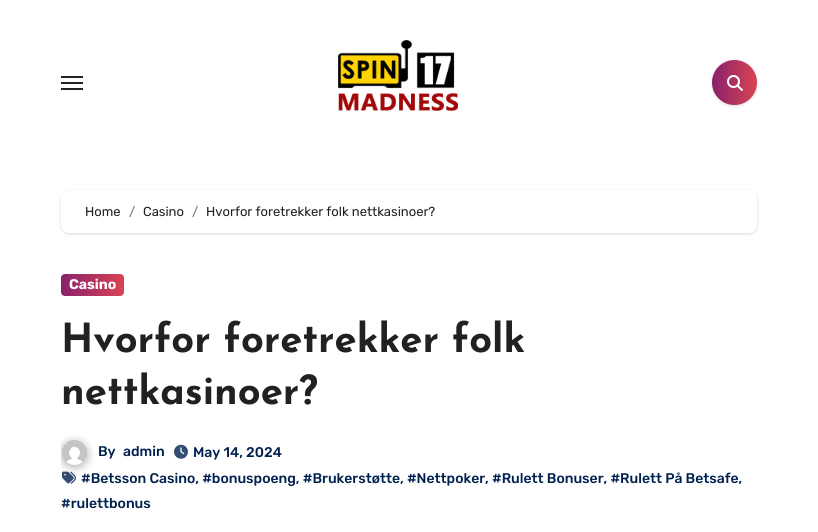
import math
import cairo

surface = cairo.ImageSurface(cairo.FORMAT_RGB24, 818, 532)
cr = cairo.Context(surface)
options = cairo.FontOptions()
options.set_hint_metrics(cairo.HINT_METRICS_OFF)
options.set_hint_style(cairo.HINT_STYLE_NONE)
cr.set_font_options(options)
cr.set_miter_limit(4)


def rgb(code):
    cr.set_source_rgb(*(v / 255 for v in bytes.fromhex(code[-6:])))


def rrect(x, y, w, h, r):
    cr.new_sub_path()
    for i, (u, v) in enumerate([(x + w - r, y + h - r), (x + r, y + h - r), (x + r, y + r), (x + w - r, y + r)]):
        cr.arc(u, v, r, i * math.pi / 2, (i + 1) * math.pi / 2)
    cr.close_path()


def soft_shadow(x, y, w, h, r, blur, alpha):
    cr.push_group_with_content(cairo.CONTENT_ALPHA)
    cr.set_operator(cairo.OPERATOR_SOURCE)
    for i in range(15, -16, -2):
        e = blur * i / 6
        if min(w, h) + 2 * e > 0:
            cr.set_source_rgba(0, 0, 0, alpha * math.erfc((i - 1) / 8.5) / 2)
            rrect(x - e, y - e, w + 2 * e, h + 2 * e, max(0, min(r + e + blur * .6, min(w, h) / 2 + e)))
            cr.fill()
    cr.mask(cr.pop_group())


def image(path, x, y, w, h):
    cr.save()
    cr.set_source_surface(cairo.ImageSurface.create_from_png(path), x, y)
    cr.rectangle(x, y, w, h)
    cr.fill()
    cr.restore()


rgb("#ffffff")
cr.paint()
for x, y, w, h, color in [
    (61, 76, 22, 2, "#212121"),
    (61, 82, 22, 2, "#212121"),
    (61, 88, 22, 2, "#212121"),
]:
    rgb(color)
    cr.rectangle(x, y, w, h)
    cr.fill()
image("img/1.png", 338, 40, 120, 71)
rgb("#000000")
soft_shadow(712, 61, 45, 45, 22.5, 1.5, 0.15)
gradient = cairo.LinearGradient(712, 83, 757, 83)
gradient.add_color_stop_rgba(0, 0.537, 0.129, 0.42, 1)
gradient.add_color_stop_rgba(1, 0.855, 0.267, 0.325, 1)
cr.set_source(gradient)
cr.arc(734.5, 82.5, 22.5, 0, 2 * math.pi)
cr.fill()
image("img/2.png", 727, 75, 16, 16)
rgb("#000000")
soft_shadow(61, 191, 696, 43, 8, 1.5, 0.15)
rgb("#ffffff")
rrect(61, 190, 696, 43, 8)
cr.fill()
gradient = cairo.LinearGradient(61, 285, 124, 285)
gradient.add_color_stop_rgba(0, 0.537, 0.129, 0.42, 1)
gradient.add_color_stop_rgba(1, 0.855, 0.267, 0.325, 1)
cr.set_source(gradient)
rrect(61, 274, 63, 22, 4)
cr.fill()
cr.save()
cr.rectangle(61, 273, 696, 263)
cr.clip()
rgb("#212121")
soft_shadow(61, 441, 27, 27, 13.5, 4, 0.3)
cr.restore()
image("img/3.png", 62, 440, 25, 25)
image("img/4.png", 174, 444, 14, 15)
image("img/5.png", 62, 471, 14, 13)
cr.select_font_face("Rubik Light")
cr.set_font_size(13)
rgb("#212121")
cr.move_to(85, 216)
cr.show_text("Home")
rgb("#6c757d")
cr.move_to(129, 216)
cr.show_text("/")
rgb("#212121")
cr.move_to(143, 216)
cr.show_text("Casino")
rgb("#6c757d")
cr.move_to(192, 216)
cr.show_text("/")
rgb("#212121")
cr.move_to(206, 216)
cr.show_text("Hvorfor foretrekker folk nettkasinoer?")
cr.select_font_face("Rubik", cairo.FONT_SLANT_NORMAL, cairo.FONT_WEIGHT_BOLD)
cr.set_font_size(14)
rgb("#ffffff")
cr.move_to(69, 289)
cr.show_text("Casino")
cr.select_font_face("Josefin Sans", cairo.FONT_SLANT_NORMAL, cairo.FONT_WEIGHT_BOLD)
cr.set_font_size(40)
rgb("#212121")
cr.move_to(61, 352)
cr.show_text("Hvorfor foretrekker folk")
cr.move_to(61, 404)
cr.show_text("nettkasinoer?")
cr.select_font_face("Rubik Medium")
cr.set_font_size(14)
rgb("#002050")
for x, y, s in [
    (98, 456, "By"),
    (123, 456, "admin"),
    (193, 457, "May 14, 2024"),
    (81, 483, "#Betsson Casino, #bonuspoeng, #Brukerstøtte, #Nettpoker, #Rulett Bonuser, #Rulett På Betsafe,"),
    (61, 508, "#rulettbonus"),
]:
    cr.move_to(x, y)
    cr.show_text(s)
surface.write_to_png("page.png")
